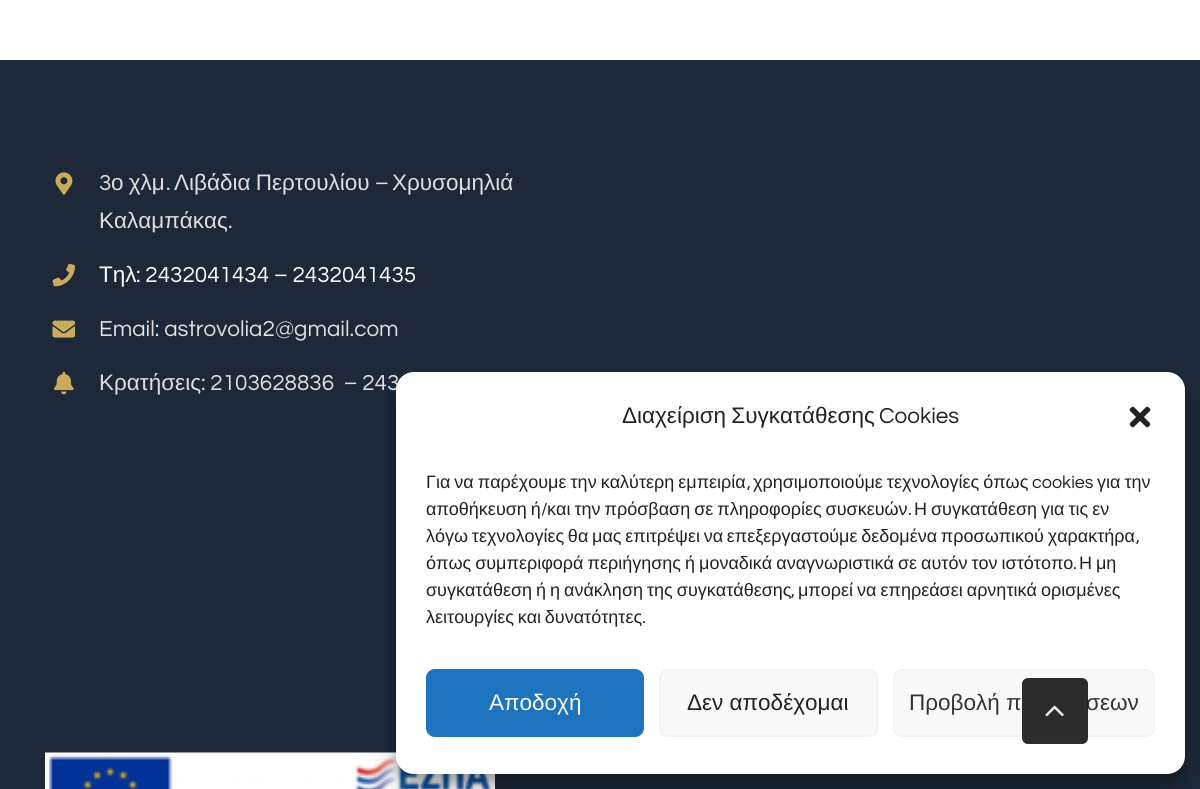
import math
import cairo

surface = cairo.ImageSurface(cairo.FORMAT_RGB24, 1200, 789)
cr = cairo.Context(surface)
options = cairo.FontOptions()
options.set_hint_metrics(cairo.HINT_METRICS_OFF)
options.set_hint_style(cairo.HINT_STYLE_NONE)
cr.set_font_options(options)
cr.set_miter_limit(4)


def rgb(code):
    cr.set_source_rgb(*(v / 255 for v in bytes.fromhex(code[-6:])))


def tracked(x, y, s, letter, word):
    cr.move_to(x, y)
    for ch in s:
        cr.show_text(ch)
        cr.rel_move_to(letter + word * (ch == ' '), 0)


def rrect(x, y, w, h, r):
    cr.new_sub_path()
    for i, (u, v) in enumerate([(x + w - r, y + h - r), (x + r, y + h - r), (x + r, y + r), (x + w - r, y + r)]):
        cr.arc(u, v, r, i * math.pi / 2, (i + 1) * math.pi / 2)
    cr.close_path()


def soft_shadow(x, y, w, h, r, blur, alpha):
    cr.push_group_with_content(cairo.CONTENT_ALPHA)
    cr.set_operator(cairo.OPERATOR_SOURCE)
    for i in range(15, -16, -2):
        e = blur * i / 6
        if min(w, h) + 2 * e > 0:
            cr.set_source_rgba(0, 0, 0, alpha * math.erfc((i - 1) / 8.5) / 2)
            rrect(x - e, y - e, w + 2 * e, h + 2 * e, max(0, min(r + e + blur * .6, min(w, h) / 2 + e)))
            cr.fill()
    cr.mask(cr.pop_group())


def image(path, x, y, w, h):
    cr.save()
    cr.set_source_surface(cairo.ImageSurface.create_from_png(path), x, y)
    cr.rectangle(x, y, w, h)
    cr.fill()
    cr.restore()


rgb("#ffffff")
cr.paint()
rgb("#1d2939")
cr.rectangle(0, 60, 1200, 729)
cr.fill()
image("img/1.png", 55, 172, 18, 23)
image("img/2.png", 52, 263, 23, 24)
image("img/3.png", 52, 320, 23, 18)
image("img/4.png", 54, 371, 20, 24)
image("img/5.png", 45, 752, 450, 37)
rgb("#000000")
soft_shadow(396, 381, 789, 402, 18, 4.5, 0.23)
soft_shadow(396, 387, 789, 402, 18, 15, 0.19)
cr.select_font_face("Questrial")
cr.set_font_size(22.5)
rgb("#e0dede")
cr.move_to(99, 190)
cr.show_text("3")
cr.select_font_face("Liberation Sans")
tracked(111, 190, "ο χλμ", 0, -1)
tracked(174, 190, "Λιβάδια Περτουλίου", 0, -1)
cr.select_font_face("Questrial")
cr.move_to(375, 190)
cr.show_text("–")
cr.select_font_face("Liberation Sans")
cr.move_to(392, 190)
cr.show_text("Χρυσομηλιά")
cr.select_font_face("Questrial")
cr.move_to(166, 190)
cr.show_text(".")
cr.select_font_face("Liberation Sans")
cr.move_to(99, 228)
cr.show_text("Καλαμπάκας")
cr.select_font_face("Questrial")
cr.move_to(228, 228)
cr.show_text(".")
cr.select_font_face("Liberation Sans")
rgb("#ffffff")
cr.move_to(99, 282)
cr.show_text("Τηλ")
cr.select_font_face("Questrial")
cr.move_to(136, 282)
cr.show_text(": 2432041434 – 2432041435")
rgb("#e0dede")
cr.move_to(99, 336)
cr.show_text("Email: astrovolia2@gmail.com")
cr.select_font_face("Liberation Sans")
cr.move_to(99, 390)
cr.show_text("Κρατήσεις")
cr.select_font_face("Questrial")
cr.move_to(201, 390)
cr.show_text(": 2103628836  – 243")
rgb("#ffffff")
rrect(396, 372, 789, 402, 18)
cr.fill()
cr.select_font_face("Liberation Sans")
rgb("#222222")
tracked(622, 423, "Διαχείριση Συγκατάθεσης", 0, -1)
cr.select_font_face("Questrial")
cr.move_to(879, 423)
cr.show_text("Cookies")
image("img/6.png", 1129, 406, 22, 22)
cr.select_font_face("Liberation Sans")
cr.set_font_size(18)
tracked(426, 488, "Για να παρέχουμε την καλύτερη εμπειρία", 0, -1)
cr.select_font_face("Questrial")
cr.move_to(747, 488)
cr.show_text(",")
cr.select_font_face("Liberation Sans")
tracked(753, 488, "χρησιμοποιούμε τεχνολογίες όπως", 0, -1)
cr.select_font_face("Questrial")
cr.move_to(1032, 488)
cr.show_text("cookies")
cr.select_font_face("Liberation Sans")
tracked(1097, 488, "για την", 0, -1)
tracked(426, 515, "αποθήκευση ή", 0, -1)
cr.select_font_face("Questrial")
cr.move_to(541, 515)
cr.show_text("/")
cr.select_font_face("Liberation Sans")
tracked(547, 515, "και την πρόσβαση σε πληροφορίες συσκευών", 0, -1)
cr.select_font_face("Questrial")
cr.move_to(908, 515)
cr.show_text(".")
cr.select_font_face("Liberation Sans")
tracked(914, 515, "Η συγκατάθεση για τις εν", 0, -1)
tracked(426, 542, "λόγω τεχνολογίες θα μας επιτρέψει να επεξεργαστούμε δεδομένα προσωπικού χαρακτήρα", 0, -1.25)
cr.select_font_face("Questrial")
cr.move_to(1136, 542)
cr.show_text(",")
cr.select_font_face("Liberation Sans")
tracked(426, 569, "όπως συμπεριφορά περιήγησης ή μοναδικά αναγνωριστικά σε αυτόν τον ιστότοπο", 0, -1)
cr.select_font_face("Questrial")
cr.move_to(1073, 569)
cr.show_text(".")
cr.select_font_face("Liberation Sans")
tracked(1079, 569, "Η μη", 0, -1)
tracked(426, 596, "συγκατάθεση ή η ανάκληση της συγκατάθεσης", 0, -1)
cr.select_font_face("Questrial")
cr.move_to(791, 596)
cr.show_text(",")
cr.select_font_face("Liberation Sans")
tracked(798, 596, "μπορεί να επηρεάσει αρνητικά ορισμένες", 0, -1)
tracked(426, 623, "λειτουργίες και δυνατότητες", 0, -1.25)
cr.select_font_face("Questrial")
cr.move_to(642, 623)
cr.show_text(".")
rgb("#1e73be")
rrect(427, 670, 216, 66, 8)
cr.fill_preserve()
cr.stroke()
cr.select_font_face("Liberation Sans")
cr.set_font_size(22.5)
rgb("#ffffff")
cr.move_to(489, 710)
cr.show_text("Αποδοχή")
rgb("#f9f9f9")
rrect(660, 670, 217, 66, 8)
cr.fill_preserve()
rgb("#f2f2f2")
cr.stroke()
rgb("#222222")
cr.move_to(687, 710)
cr.show_text("Δεν αποδέχομαι")
rgb("#f9f9f9")
rrect(894, 670, 260, 66, 8)
cr.fill_preserve()
rgb("#f2f2f2")
cr.stroke()
rgb("#333333")
cr.move_to(909, 710)
cr.show_text("Προβολή π")
cr.move_to(1086, 710)
cr.show_text("σεων")
cr.set_source_rgba(0.09, 0.09, 0.09, 0.9)
rrect(1022, 678, 66, 66, 6)
cr.fill()
image("img/7.png", 1045, 705, 19, 12)
surface.write_to_png("page.png")
